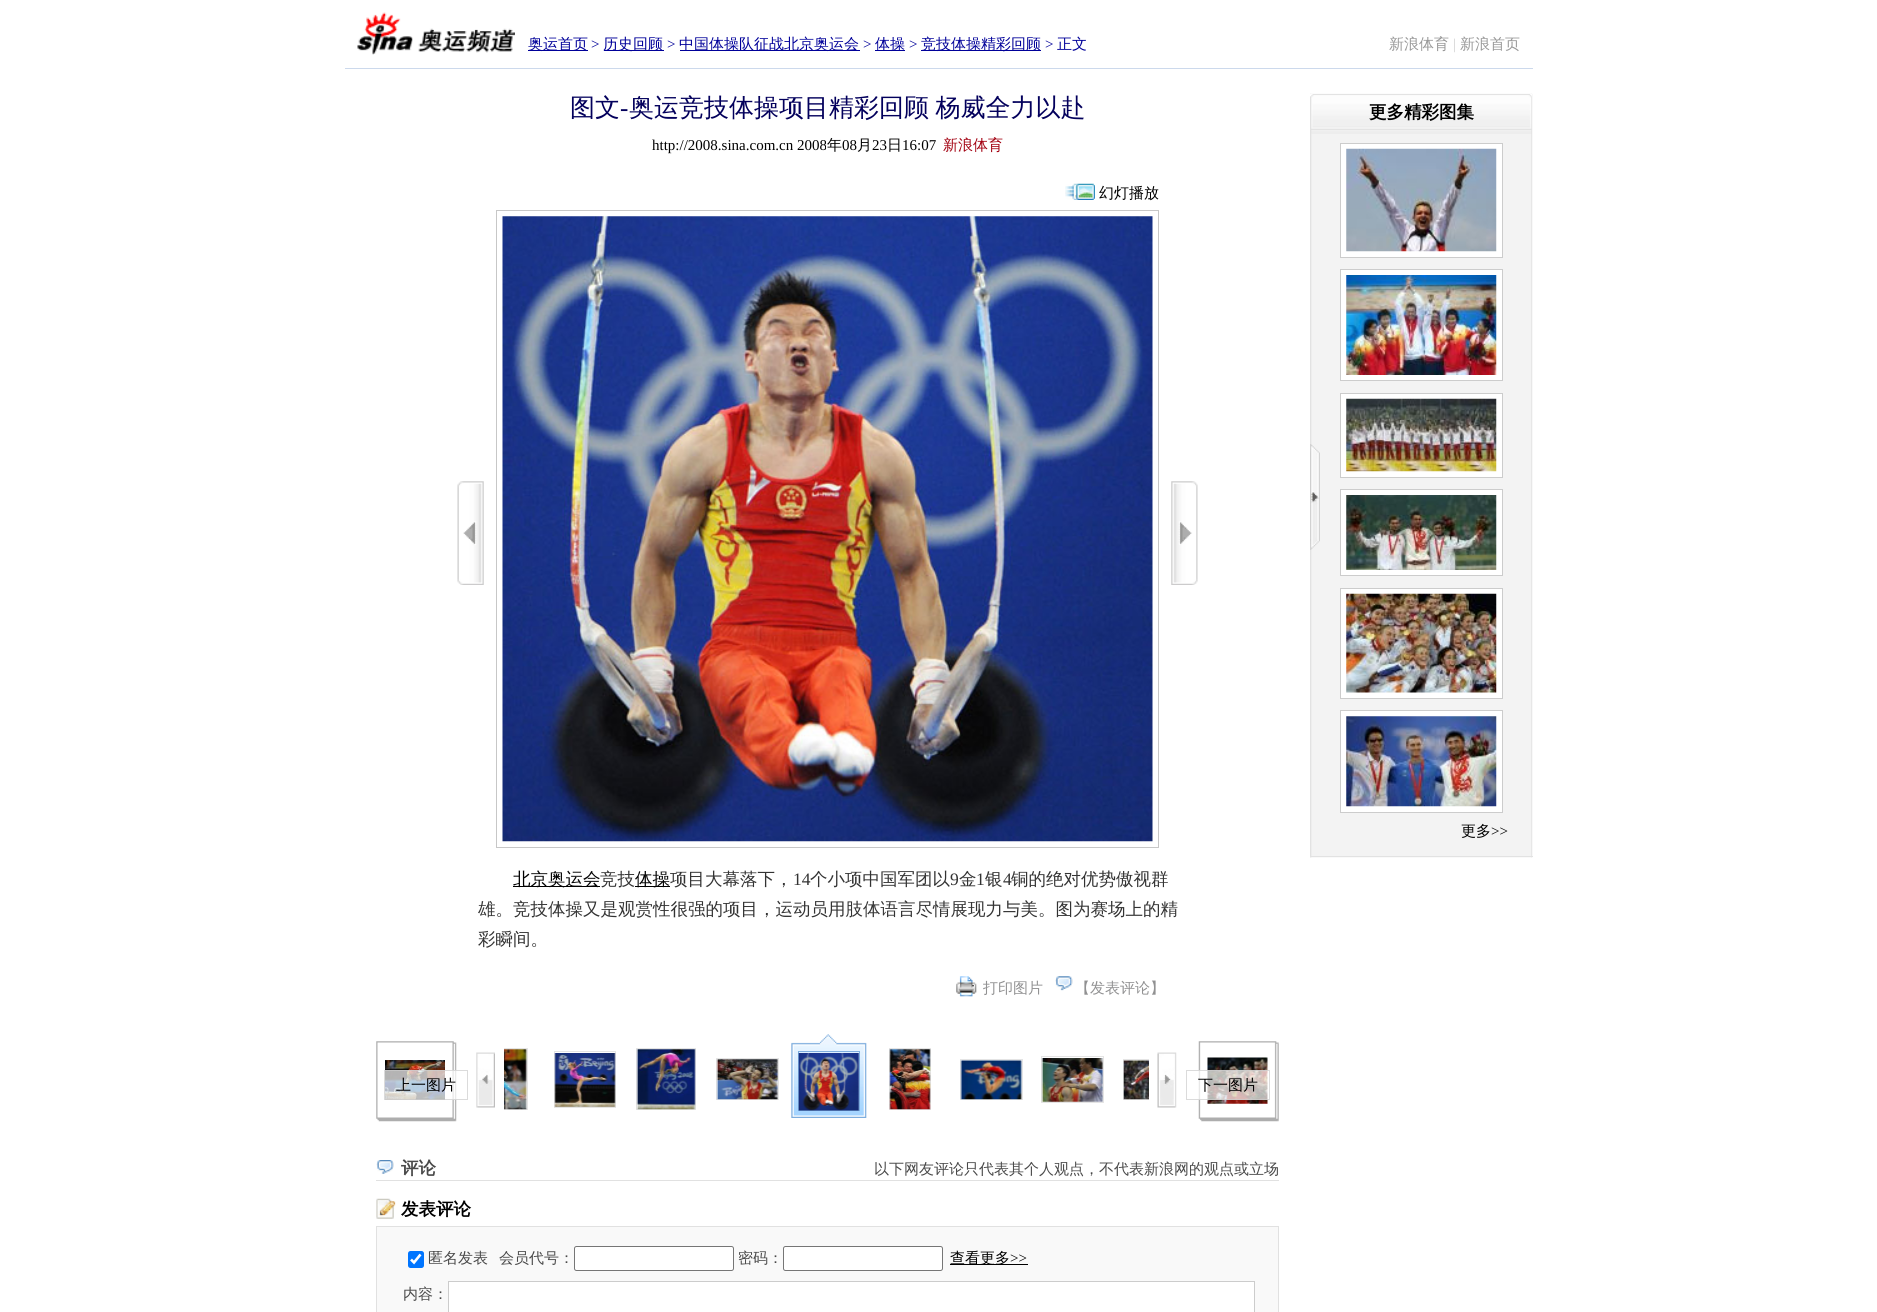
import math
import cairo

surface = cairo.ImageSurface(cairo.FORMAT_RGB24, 1877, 1312)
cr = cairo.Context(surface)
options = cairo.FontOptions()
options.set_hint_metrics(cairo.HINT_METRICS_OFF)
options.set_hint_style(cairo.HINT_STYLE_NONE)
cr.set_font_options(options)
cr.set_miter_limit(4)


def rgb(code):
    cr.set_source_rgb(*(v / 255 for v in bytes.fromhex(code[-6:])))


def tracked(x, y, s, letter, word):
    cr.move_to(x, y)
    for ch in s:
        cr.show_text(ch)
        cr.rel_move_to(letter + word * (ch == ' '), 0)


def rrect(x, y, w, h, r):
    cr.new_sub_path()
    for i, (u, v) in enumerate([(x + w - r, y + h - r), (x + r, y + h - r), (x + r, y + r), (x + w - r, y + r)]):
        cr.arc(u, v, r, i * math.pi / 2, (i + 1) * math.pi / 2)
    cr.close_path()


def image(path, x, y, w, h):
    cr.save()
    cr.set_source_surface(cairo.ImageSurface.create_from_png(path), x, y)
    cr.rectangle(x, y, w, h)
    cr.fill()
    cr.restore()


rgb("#ffffff")
cr.paint()
rgb("#ccd9ec")
cr.rectangle(345, 68, 1188, 1)
cr.fill()
image("img/1.png", 357, 12, 56, 43)
image("img/2.png", 412, 28, 103, 25)
for x, y, w, h, color in [
    (528, 50, 60, 1, "#000099"),
    (604, 50, 60, 1, "#000099"),
    (680, 50, 180, 1, "#000099"),
    (875, 50, 30, 1, "#000099"),
    (921, 50, 120, 1, "#000099"),
]:
    rgb(color)
    cr.rectangle(x, y, w, h)
    cr.fill()
image("img/3.png", 1065, 183, 30, 17)
image("img/4.png", 457, 481, 27, 104)
cr.rectangle(496.5, 210.5, 662, 637)
rgb("#c7c7c7")
cr.set_line_width(1)
cr.stroke()
image("img/5.png", 502, 216, 651, 626)
image("img/6.png", 1171, 481, 27, 104)
rgb("#000000")
cr.rectangle(513, 886, 87, 1)
cr.fill()
cr.rectangle(635, 886, 35, 1)
cr.fill()
image("img/7.png", 956, 976, 21, 21)
image("img/8.png", 1055, 976, 18, 15)
image("img/9.png", 376, 1041, 81, 81)
image("img/10.png", 385, 1060, 60, 40)
cr.set_source_rgba(1, 1, 1, 0.7)
cr.rectangle(385, 1070, 72, 30)
cr.fill()
cr.rectangle(384.5, 1070.5, 83, 29)
cr.set_source_rgba(0.8, 0.8, 0.8, 0.7)
cr.stroke()
image("img/21.png", 476, 1052, 19, 56)
cr.save()
cr.rectangle(504, 1028, 645, 90)
cr.clip()
cr.rectangle(479.5, 1048.5, 48, 61)
rgb("#e4e4e4")
cr.stroke()
cr.restore()
image("img/11.png", 504, 1049, 23, 61)
cr.rectangle(554.5, 1051.5, 61, 56)
rgb("#e4e4e4")
cr.stroke()
image("img/12.png", 554, 1053, 62, 54)
cr.rectangle(636.5, 1048.5, 59, 61)
cr.stroke()
image("img/13.png", 636, 1049, 60, 61)
cr.rectangle(716.5, 1058.5, 62, 41)
cr.stroke()
image("img/14.png", 716, 1059, 62, 41)
image("img/15.png", 791, 1034, 76, 84)
cr.rectangle(798.5, 1051.5, 61, 59)
rgb("#7dadde")
cr.stroke()
image("img/16.png", 798, 1053, 61, 58)
cr.rectangle(889.5, 1048.5, 41, 61)
rgb("#e4e4e4")
cr.stroke()
image("img/17.png", 889, 1049, 42, 61)
cr.rectangle(960.5, 1059.5, 62, 40)
cr.stroke()
image("img/18.png", 960, 1060, 62, 40)
cr.rectangle(1041.5, 1056.5, 62, 46)
cr.stroke()
image("img/19.png", 1041, 1058, 62, 44)
cr.save()
cr.rectangle(504, 1028, 645, 90)
cr.clip()
cr.rectangle(1123.5, 1059.5, 61, 40)
cr.stroke()
cr.restore()
image("img/20.png", 1123, 1060, 26, 40)
image("img/22.png", 1157, 1052, 20, 56)
image("img/23.png", 1198, 1041, 81, 81)
image("img/24.png", 1207, 1057, 61, 47)
cr.set_source_rgba(1, 1, 1, 0.7)
cr.rectangle(1198, 1070, 70, 30)
cr.fill()
cr.rectangle(1186.5, 1070.5, 83, 29)
cr.set_source_rgba(0.8, 0.8, 0.8, 0.7)
cr.stroke()
rgb("#e1e1e1")
cr.rectangle(376, 1180, 903, 1)
cr.fill()
image("img/25.png", 376, 1160, 18, 14)
image("img/26.png", 376, 1198, 20, 21)
rgb("#f9f9f9")
cr.rectangle(376.5, 1226.5, 902, 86)
cr.fill_preserve()
rgb("#e1e1e1")
cr.stroke()
rgb("#0075ff")
rrect(408, 1251, 16, 17, 2.5)
cr.fill()
cr.new_path()
cr.move_to(411, 1259.5)
cr.line_to(414, 1262.5)
cr.line_to(420.5, 1254.5)
rgb("#ffffff")
cr.set_line_width(2.6)
cr.stroke()
rrect(574.5, 1246.5, 159, 24, 2)
cr.fill_preserve()
rgb("#767676")
cr.set_line_width(1)
cr.stroke()
rgb("#ffffff")
rrect(783.5, 1246.5, 159, 24, 2)
cr.fill_preserve()
rgb("#767676")
cr.stroke()
rgb("#000000")
cr.rectangle(950, 1264, 78, 1)
cr.fill()
rgb("#ffffff")
cr.rectangle(448.5, 1281.5, 806, 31)
cr.fill_preserve()
rgb("#cccccc")
cr.stroke()
image("img/27.png", 1310, 93, 223, 765)
rgb("#e2e2e2")
cr.rectangle(1310, 856, 223, 1)
cr.fill()
image("img/28.png", 1310, 444, 10, 106)
image("img/29.png", 1310, 94, 222, 40)
rgb("#ffffff")
cr.rectangle(1340.5, 143.5, 162, 114)
cr.fill_preserve()
rgb("#cccccc")
cr.stroke()
image("img/30.png", 1346, 148, 151, 104)
rgb("#ffffff")
cr.rectangle(1340.5, 269.5, 162, 111)
cr.fill_preserve()
rgb("#cccccc")
cr.stroke()
image("img/31.png", 1346, 275, 151, 100)
rgb("#ffffff")
cr.rectangle(1340.5, 393.5, 162, 84)
cr.fill_preserve()
rgb("#cccccc")
cr.stroke()
image("img/32.png", 1346, 398, 151, 74)
rgb("#ffffff")
cr.rectangle(1340.5, 489.5, 162, 86)
cr.fill_preserve()
rgb("#cccccc")
cr.stroke()
image("img/33.png", 1346, 495, 151, 75)
rgb("#ffffff")
cr.rectangle(1340.5, 588.5, 162, 110)
cr.fill_preserve()
rgb("#cccccc")
cr.stroke()
image("img/34.png", 1346, 593, 151, 100)
rgb("#ffffff")
cr.rectangle(1340.5, 710.5, 162, 102)
cr.fill_preserve()
rgb("#cccccc")
cr.stroke()
image("img/35.png", 1346, 716, 151, 91)
cr.select_font_face("WenQuanYi Zen Hei Medium")
cr.set_font_size(15)
rgb("#000099")
cr.move_to(528, 49)
cr.show_text("奥运首页")
cr.select_font_face("Liberation Serif")
cr.move_to(591, 49)
cr.show_text(">")
cr.select_font_face("WenQuanYi Zen Hei Medium")
cr.move_to(603, 49)
cr.show_text("历史回顾")
cr.select_font_face("Liberation Serif")
cr.move_to(667, 49)
cr.show_text(">")
cr.select_font_face("WenQuanYi Zen Hei Medium")
cr.move_to(679, 49)
cr.show_text("中国体操队征战北京奥运会")
cr.select_font_face("Liberation Serif")
cr.move_to(863, 49)
cr.show_text(">")
cr.select_font_face("WenQuanYi Zen Hei Medium")
cr.move_to(875, 49)
cr.show_text("体操")
cr.select_font_face("Liberation Serif")
cr.move_to(909, 49)
cr.show_text(">")
cr.select_font_face("WenQuanYi Zen Hei Medium")
cr.move_to(921, 49)
cr.show_text("竞技体操精彩回顾")
cr.select_font_face("Liberation Serif")
cr.move_to(1045, 49)
cr.show_text(">")
cr.select_font_face("WenQuanYi Zen Hei Medium")
cr.move_to(1057, 49)
cr.show_text("正文")
rgb("#989898")
cr.move_to(1389, 49)
cr.show_text("新浪体育")
cr.select_font_face("Liberation Serif")
rgb("#d1d1d1")
cr.move_to(1453, 49)
cr.show_text("|")
cr.select_font_face("WenQuanYi Zen Hei Medium")
rgb("#989898")
cr.move_to(1460, 49)
cr.show_text("新浪首页")
cr.set_font_size(25)
rgb("#03005c")
cr.move_to(570, 116)
cr.show_text("图文")
cr.select_font_face("Liberation Serif")
cr.move_to(620, 116)
cr.show_text("-")
cr.select_font_face("WenQuanYi Zen Hei Medium")
tracked(629, 116, "奥运竞技体操项目精彩回顾 杨威全力以赴", 0, -1)
cr.select_font_face("Liberation Serif")
cr.set_font_size(15)
rgb("#000000")
cr.move_to(652, 150)
cr.show_text("http://2008.sina.com.cn 2008")
cr.select_font_face("WenQuanYi Zen Hei Medium")
cr.move_to(827, 150)
cr.show_text("年")
cr.select_font_face("Liberation Serif")
cr.move_to(842, 150)
cr.show_text("08")
cr.select_font_face("WenQuanYi Zen Hei Medium")
cr.move_to(857, 150)
cr.show_text("月")
cr.select_font_face("Liberation Serif")
cr.move_to(872, 150)
cr.show_text("23")
cr.select_font_face("WenQuanYi Zen Hei Medium")
cr.move_to(887, 150)
cr.show_text("日")
cr.select_font_face("Liberation Serif")
cr.move_to(902, 150)
cr.show_text("16:07")
cr.select_font_face("WenQuanYi Zen Hei Medium")
rgb("#a20010")
cr.move_to(943, 150)
cr.show_text("新浪体育")
rgb("#000000")
cr.move_to(1099, 198)
cr.show_text("幻灯播放")
cr.set_font_size(17.5)
cr.move_to(513, 885)
cr.show_text("北京奥运会")
rgb("#333333")
cr.move_to(600, 885)
cr.show_text("竞技")
rgb("#000000")
cr.move_to(635, 885)
cr.show_text("体操")
rgb("#333333")
cr.move_to(670, 885)
cr.show_text("项目大幕落下，")
cr.select_font_face("Liberation Serif")
cr.move_to(793, 885)
cr.show_text("14")
cr.select_font_face("WenQuanYi Zen Hei Medium")
cr.move_to(810, 885)
cr.show_text("个小项中国军团以")
cr.select_font_face("Liberation Serif")
cr.move_to(950, 885)
cr.show_text("9")
cr.select_font_face("WenQuanYi Zen Hei Medium")
cr.move_to(959, 885)
cr.show_text("金")
cr.select_font_face("Liberation Serif")
cr.move_to(976, 885)
cr.show_text("1")
cr.select_font_face("WenQuanYi Zen Hei Medium")
cr.move_to(985, 885)
cr.show_text("银")
cr.select_font_face("Liberation Serif")
cr.move_to(1003, 885)
cr.show_text("4")
cr.select_font_face("WenQuanYi Zen Hei Medium")
for x, y, s in [
    (1011, 885, "铜的绝对优势傲视群"),
    (478, 915, "雄。竞技体操又是观赏性很强的项目，运动员用肢体语言尽情展现力与美。图为赛场上的精"),
    (478, 945, "彩瞬间。"),
]:
    cr.move_to(x, y)
    cr.show_text(s)
cr.set_font_size(15)
rgb("#919192")
cr.move_to(983, 993)
cr.show_text("打印图片")
cr.move_to(1075, 993)
cr.show_text("【发表评论】")
rgb("#000000")
cr.move_to(396, 1090)
cr.show_text("上一图片")
cr.move_to(1198, 1090)
cr.show_text("下一图片")
cr.select_font_face("WenQuanYi Zen Hei", cairo.FONT_SLANT_NORMAL, cairo.FONT_WEIGHT_BOLD)
cr.set_font_size(17.5)
rgb("#494949")
cr.move_to(401, 1174)
cr.show_text("评论")
cr.select_font_face("WenQuanYi Zen Hei Medium")
cr.set_font_size(15)
cr.move_to(874, 1174)
cr.show_text("以下网友评论只代表其个人观点，不代表新浪网的观点或立场")
cr.select_font_face("WenQuanYi Zen Hei", cairo.FONT_SLANT_NORMAL, cairo.FONT_WEIGHT_BOLD)
cr.set_font_size(17.5)
rgb("#000000")
cr.move_to(401, 1215)
cr.show_text("发表评论")
cr.select_font_face("WenQuanYi Zen Hei Medium")
cr.set_font_size(15)
rgb("#494949")
for x, y, s in [
    (428, 1263, "匿名发表"),
    (499, 1263, "会员代号："),
    (738, 1263, "密码："),
]:
    cr.move_to(x, y)
    cr.show_text(s)
rgb("#000000")
cr.move_to(950, 1263)
cr.show_text("查看更多")
cr.select_font_face("Liberation Serif")
cr.move_to(1010, 1263)
cr.show_text(">>")
cr.select_font_face("WenQuanYi Zen Hei Medium")
rgb("#494949")
cr.move_to(403, 1299)
cr.show_text("内容：")
cr.select_font_face("WenQuanYi Zen Hei", cairo.FONT_SLANT_NORMAL, cairo.FONT_WEIGHT_BOLD)
cr.set_font_size(17.5)
rgb("#000000")
cr.move_to(1369, 118)
cr.show_text("更多精彩图集")
cr.select_font_face("WenQuanYi Zen Hei Medium")
cr.set_font_size(15)
cr.move_to(1461, 836)
cr.show_text("更多")
cr.select_font_face("Liberation Serif")
cr.move_to(1491, 836)
cr.show_text(">>")
surface.write_to_png("page.png")
